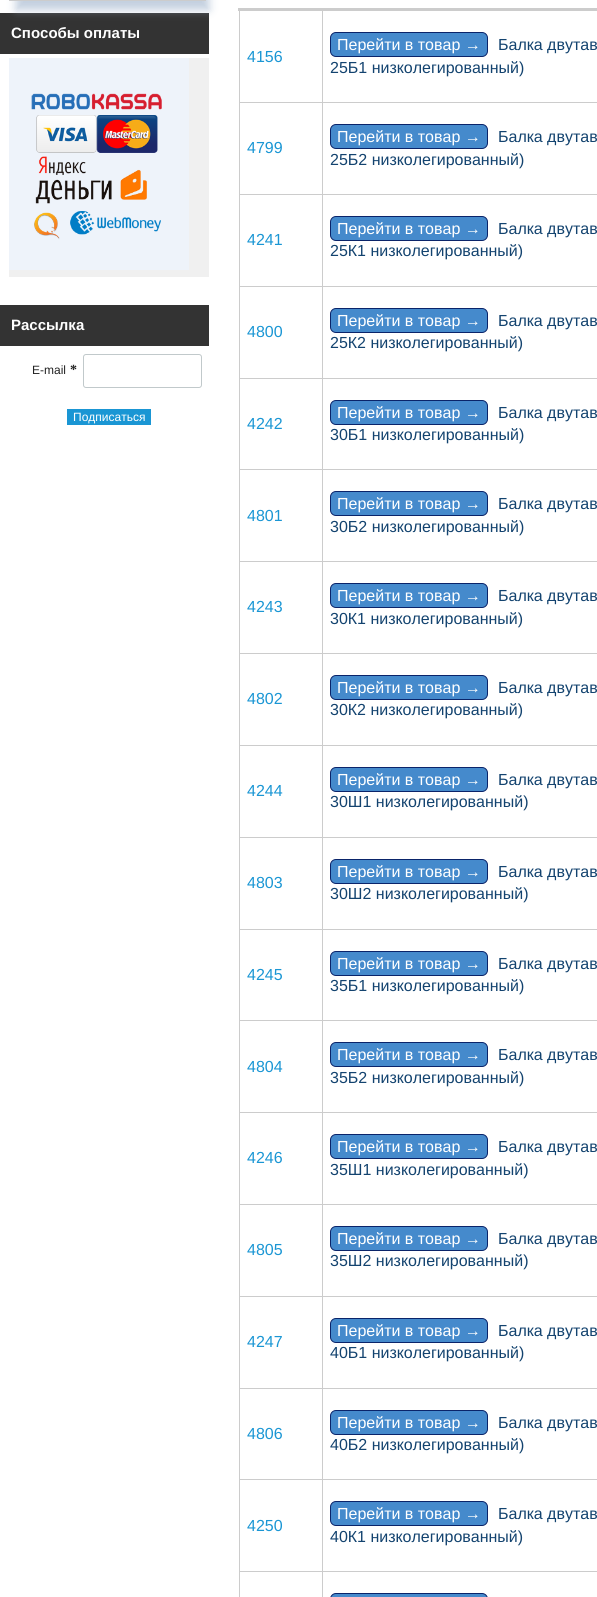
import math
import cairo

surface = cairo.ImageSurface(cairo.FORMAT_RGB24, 597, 1597)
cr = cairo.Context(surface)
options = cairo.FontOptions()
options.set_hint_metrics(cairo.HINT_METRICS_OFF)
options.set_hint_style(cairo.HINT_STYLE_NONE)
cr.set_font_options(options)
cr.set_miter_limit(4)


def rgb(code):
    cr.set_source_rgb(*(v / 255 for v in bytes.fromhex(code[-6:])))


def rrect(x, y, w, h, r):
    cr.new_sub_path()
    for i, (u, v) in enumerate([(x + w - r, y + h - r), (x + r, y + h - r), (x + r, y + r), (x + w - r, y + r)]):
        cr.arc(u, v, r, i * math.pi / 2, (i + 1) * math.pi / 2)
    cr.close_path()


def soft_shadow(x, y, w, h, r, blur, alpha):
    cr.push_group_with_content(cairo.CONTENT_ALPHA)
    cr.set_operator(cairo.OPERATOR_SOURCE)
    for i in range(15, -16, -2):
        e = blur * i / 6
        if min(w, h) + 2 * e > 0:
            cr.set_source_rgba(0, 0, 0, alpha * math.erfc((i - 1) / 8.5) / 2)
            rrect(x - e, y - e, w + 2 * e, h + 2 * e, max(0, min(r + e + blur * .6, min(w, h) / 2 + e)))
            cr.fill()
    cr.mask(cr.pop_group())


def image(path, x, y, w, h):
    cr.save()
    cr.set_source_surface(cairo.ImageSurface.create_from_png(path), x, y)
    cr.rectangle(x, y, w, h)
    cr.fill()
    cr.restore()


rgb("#ffffff")
cr.paint()
rgb("#333333")
cr.rectangle(0, 13, 209, 41)
cr.fill()
rgb("#9fb3cc")
soft_shadow(16, -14, 193, 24, 0, 4.5, 0.63)
rgb("#cccccc")
cr.rectangle(9, 0, 197, 1)
cr.fill()
rgb("#f0f0f0")
cr.rectangle(9, 58, 200, 219)
cr.fill()
image("img/1.png", 9, 58, 180, 212)
rgb("#333333")
cr.rectangle(0, 305, 209, 41)
cr.fill()
rrect(83.5, 354.5, 118, 33, 2.5)
rgb("#c1c9cb")
cr.set_line_width(1)
cr.stroke()
for x, y, w, h, color in [
    (67, 409, 84, 16, "#1a96d4"),
    (322, 102, 275, 1, "#cccccc"),
    (322, 194, 275, 1, "#cccccc"),
    (322, 286, 275, 1, "#cccccc"),
    (322, 378, 275, 1, "#cccccc"),
    (322, 469, 275, 1, "#cccccc"),
    (322, 561, 275, 1, "#cccccc"),
    (322, 653, 275, 1, "#cccccc"),
    (322, 745, 275, 1, "#cccccc"),
    (322, 837, 275, 1, "#cccccc"),
    (322, 929, 275, 1, "#cccccc"),
    (322, 1020, 275, 1, "#cccccc"),
    (322, 1112, 275, 1, "#cccccc"),
    (322, 1204, 275, 1, "#cccccc"),
    (322, 1296, 275, 1, "#cccccc"),
    (322, 1388, 275, 1, "#cccccc"),
    (322, 1479, 275, 1, "#cccccc"),
    (322, 1571, 275, 1, "#cccccc"),
    (322, 1571, 1, 26, "#cccccc"),
    (239, 1571, 84, 1, "#cccccc"),
    (322, 1479, 1, 93, "#cccccc"),
    (239, 1479, 84, 1, "#cccccc"),
    (322, 1388, 1, 92, "#cccccc"),
    (239, 1388, 84, 1, "#cccccc"),
    (322, 1296, 1, 93, "#cccccc"),
    (239, 1296, 84, 1, "#cccccc"),
    (322, 1204, 1, 93, "#cccccc"),
    (239, 1204, 84, 1, "#cccccc"),
    (322, 1112, 1, 93, "#cccccc"),
    (239, 1112, 84, 1, "#cccccc"),
    (322, 1020, 1, 93, "#cccccc"),
    (239, 1020, 84, 1, "#cccccc"),
    (322, 929, 1, 92, "#cccccc"),
    (239, 929, 84, 1, "#cccccc"),
    (322, 837, 1, 93, "#cccccc"),
    (239, 837, 84, 1, "#cccccc"),
    (322, 745, 1, 93, "#cccccc"),
    (239, 745, 84, 1, "#cccccc"),
    (322, 653, 1, 93, "#cccccc"),
    (239, 653, 84, 1, "#cccccc"),
    (322, 561, 1, 93, "#cccccc"),
    (239, 561, 84, 1, "#cccccc"),
    (322, 469, 1, 93, "#cccccc"),
    (239, 469, 84, 1, "#cccccc"),
    (322, 378, 1, 92, "#cccccc"),
    (239, 378, 84, 1, "#cccccc"),
    (322, 286, 1, 93, "#cccccc"),
    (239, 286, 84, 1, "#cccccc"),
    (322, 194, 1, 93, "#cccccc"),
    (239, 194, 84, 1, "#cccccc"),
    (322, 102, 1, 93, "#cccccc"),
    (239, 102, 84, 1, "#cccccc"),
    (322, 9, 1, 94, "#cccccc"),
    (239, 1571, 1, 26, "#cccccc"),
    (239, 1479, 1, 93, "#cccccc"),
    (239, 1388, 1, 92, "#cccccc"),
    (239, 1296, 1, 93, "#cccccc"),
    (239, 1204, 1, 93, "#cccccc"),
    (239, 1112, 1, 93, "#cccccc"),
    (239, 1020, 1, 93, "#cccccc"),
    (239, 929, 1, 92, "#cccccc"),
    (239, 837, 1, 93, "#cccccc"),
    (239, 745, 1, 93, "#cccccc"),
    (239, 653, 1, 93, "#cccccc"),
    (239, 561, 1, 93, "#cccccc"),
    (239, 469, 1, 93, "#cccccc"),
    (239, 378, 1, 92, "#cccccc"),
    (239, 286, 1, 93, "#cccccc"),
    (239, 194, 1, 93, "#cccccc"),
    (239, 9, 1, 186, "#cccccc"),
    (238, 8, 359, 3, "#cccccc"),
]:
    rgb(color)
    cr.rectangle(x, y, w, h)
    cr.fill()
rgb("#458acc")
rrect(330.5, 32.5, 157, 24, 5.5)
cr.fill_preserve()
rgb("#0a246a")
cr.stroke()
rgb("#458acc")
rrect(330.5, 124.5, 157, 24, 5.5)
cr.fill_preserve()
rgb("#0a246a")
cr.stroke()
rgb("#458acc")
rrect(330.5, 216.5, 157, 24, 5.5)
cr.fill_preserve()
rgb("#0a246a")
cr.stroke()
rgb("#458acc")
rrect(330.5, 308.5, 157, 24, 5.5)
cr.fill_preserve()
rgb("#0a246a")
cr.stroke()
rgb("#458acc")
rrect(330.5, 400.5, 157, 24, 5.5)
cr.fill_preserve()
rgb("#0a246a")
cr.stroke()
rgb("#458acc")
rrect(330.5, 491.5, 157, 24, 5.5)
cr.fill_preserve()
rgb("#0a246a")
cr.stroke()
rgb("#458acc")
rrect(330.5, 583.5, 157, 24, 5.5)
cr.fill_preserve()
rgb("#0a246a")
cr.stroke()
rgb("#458acc")
rrect(330.5, 675.5, 157, 24, 5.5)
cr.fill_preserve()
rgb("#0a246a")
cr.stroke()
rgb("#458acc")
rrect(330.5, 767.5, 157, 24, 5.5)
cr.fill_preserve()
rgb("#0a246a")
cr.stroke()
rgb("#458acc")
rrect(330.5, 859.5, 157, 24, 5.5)
cr.fill_preserve()
rgb("#0a246a")
cr.stroke()
rgb("#458acc")
rrect(330.5, 951.5, 157, 24, 5.5)
cr.fill_preserve()
rgb("#0a246a")
cr.stroke()
rgb("#458acc")
rrect(330.5, 1042.5, 157, 24, 5.5)
cr.fill_preserve()
rgb("#0a246a")
cr.stroke()
rgb("#458acc")
rrect(330.5, 1134.5, 157, 24, 5.5)
cr.fill_preserve()
rgb("#0a246a")
cr.stroke()
rgb("#458acc")
rrect(330.5, 1226.5, 157, 24, 5.5)
cr.fill_preserve()
rgb("#0a246a")
cr.stroke()
rgb("#458acc")
rrect(330.5, 1318.5, 157, 24, 5.5)
cr.fill_preserve()
rgb("#0a246a")
cr.stroke()
rgb("#458acc")
rrect(330.5, 1410.5, 157, 24, 5.5)
cr.fill_preserve()
rgb("#0a246a")
cr.stroke()
rgb("#458acc")
rrect(330.5, 1501.5, 157, 24, 5.5)
cr.fill_preserve()
rgb("#0a246a")
cr.stroke()
rgb("#458acc")
rrect(330.5, 1593.5, 157, 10, 5.5)
cr.fill_preserve()
rgb("#0a246a")
cr.stroke()
cr.select_font_face("Liberation Sans", cairo.FONT_SLANT_NORMAL, cairo.FONT_WEIGHT_BOLD)
cr.set_font_size(15)
rgb("#ffffff")
cr.move_to(11, 38)
cr.show_text("Способы оплаты")
cr.move_to(11, 330)
cr.show_text("Рассылка")
cr.select_font_face("Liberation Sans")
cr.set_font_size(12)
rgb("#222222")
cr.move_to(32, 374)
cr.show_text("E-mail")
cr.select_font_face("Liberation Serif", cairo.FONT_SLANT_NORMAL, cairo.FONT_WEIGHT_BOLD)
cr.set_font_size(14)
cr.move_to(70, 374)
cr.show_text("*")
cr.select_font_face("Liberation Sans")
cr.set_font_size(12)
rgb("#ffffff")
cr.move_to(73, 421)
cr.show_text("Подписаться")
cr.set_font_size(16)
rgb("#1a96d4")
cr.move_to(247, 62)
cr.show_text("4156")
rgb("#ffffff")
cr.move_to(337, 50)
cr.show_text("Перейти в товар →")
rgb("#13436f")
cr.move_to(498, 50)
cr.show_text("Балка двутав")
cr.move_to(330, 73)
cr.show_text("25Б1 низколегированный)")
rgb("#1a96d4")
cr.move_to(247, 153)
cr.show_text("4799")
rgb("#ffffff")
cr.move_to(337, 142)
cr.show_text("Перейти в товар →")
rgb("#13436f")
cr.move_to(498, 142)
cr.show_text("Балка двутав")
cr.move_to(330, 165)
cr.show_text("25Б2 низколегированный)")
rgb("#1a96d4")
cr.move_to(247, 245)
cr.show_text("4241")
rgb("#ffffff")
cr.move_to(337, 234)
cr.show_text("Перейти в товар →")
rgb("#13436f")
cr.move_to(498, 234)
cr.show_text("Балка двутав")
cr.move_to(330, 256)
cr.show_text("25К1 низколегированный)")
rgb("#1a96d4")
cr.move_to(247, 337)
cr.show_text("4800")
rgb("#ffffff")
cr.move_to(337, 326)
cr.show_text("Перейти в товар →")
rgb("#13436f")
cr.move_to(498, 326)
cr.show_text("Балка двутав")
cr.move_to(330, 348)
cr.show_text("25К2 низколегированный)")
rgb("#1a96d4")
cr.move_to(247, 429)
cr.show_text("4242")
rgb("#ffffff")
cr.move_to(337, 418)
cr.show_text("Перейти в товар →")
rgb("#13436f")
cr.move_to(498, 418)
cr.show_text("Балка двутав")
cr.move_to(330, 440)
cr.show_text("30Б1 низколегированный)")
rgb("#1a96d4")
cr.move_to(247, 521)
cr.show_text("4801")
rgb("#ffffff")
cr.move_to(337, 509)
cr.show_text("Перейти в товар →")
rgb("#13436f")
cr.move_to(498, 509)
cr.show_text("Балка двутав")
cr.move_to(330, 532)
cr.show_text("30Б2 низколегированный)")
rgb("#1a96d4")
cr.move_to(247, 612)
cr.show_text("4243")
rgb("#ffffff")
cr.move_to(337, 601)
cr.show_text("Перейти в товар →")
rgb("#13436f")
cr.move_to(498, 601)
cr.show_text("Балка двутав")
cr.move_to(330, 624)
cr.show_text("30К1 низколегированный)")
rgb("#1a96d4")
cr.move_to(247, 704)
cr.show_text("4802")
rgb("#ffffff")
cr.move_to(337, 693)
cr.show_text("Перейти в товар →")
rgb("#13436f")
cr.move_to(498, 693)
cr.show_text("Балка двутав")
cr.move_to(330, 715)
cr.show_text("30К2 низколегированный)")
rgb("#1a96d4")
cr.move_to(247, 796)
cr.show_text("4244")
rgb("#ffffff")
cr.move_to(337, 785)
cr.show_text("Перейти в товар →")
rgb("#13436f")
cr.move_to(498, 785)
cr.show_text("Балка двутав")
cr.move_to(330, 807)
cr.show_text("30Ш1 низколегированный)")
rgb("#1a96d4")
cr.move_to(247, 888)
cr.show_text("4803")
rgb("#ffffff")
cr.move_to(337, 877)
cr.show_text("Перейти в товар →")
rgb("#13436f")
cr.move_to(498, 877)
cr.show_text("Балка двутав")
cr.move_to(330, 899)
cr.show_text("30Ш2 низколегированный)")
rgb("#1a96d4")
cr.move_to(247, 980)
cr.show_text("4245")
rgb("#ffffff")
cr.move_to(337, 969)
cr.show_text("Перейти в товар →")
rgb("#13436f")
cr.move_to(498, 969)
cr.show_text("Балка двутав")
cr.move_to(330, 991)
cr.show_text("35Б1 низколегированный)")
rgb("#1a96d4")
cr.move_to(247, 1072)
cr.show_text("4804")
rgb("#ffffff")
cr.move_to(337, 1060)
cr.show_text("Перейти в товар →")
rgb("#13436f")
cr.move_to(498, 1060)
cr.show_text("Балка двутав")
cr.move_to(330, 1083)
cr.show_text("35Б2 низколегированный)")
rgb("#1a96d4")
cr.move_to(247, 1163)
cr.show_text("4246")
rgb("#ffffff")
cr.move_to(337, 1152)
cr.show_text("Перейти в товар →")
rgb("#13436f")
cr.move_to(498, 1152)
cr.show_text("Балка двутав")
cr.move_to(330, 1175)
cr.show_text("35Ш1 низколегированный)")
rgb("#1a96d4")
cr.move_to(247, 1255)
cr.show_text("4805")
rgb("#ffffff")
cr.move_to(337, 1244)
cr.show_text("Перейти в товар →")
rgb("#13436f")
cr.move_to(498, 1244)
cr.show_text("Балка двутав")
cr.move_to(330, 1266)
cr.show_text("35Ш2 низколегированный)")
rgb("#1a96d4")
cr.move_to(247, 1347)
cr.show_text("4247")
rgb("#ffffff")
cr.move_to(337, 1336)
cr.show_text("Перейти в товар →")
rgb("#13436f")
cr.move_to(498, 1336)
cr.show_text("Балка двутав")
cr.move_to(330, 1358)
cr.show_text("40Б1 низколегированный)")
rgb("#1a96d4")
cr.move_to(247, 1439)
cr.show_text("4806")
rgb("#ffffff")
cr.move_to(337, 1428)
cr.show_text("Перейти в товар →")
rgb("#13436f")
cr.move_to(498, 1428)
cr.show_text("Балка двутав")
cr.move_to(330, 1450)
cr.show_text("40Б2 низколегированный)")
rgb("#1a96d4")
cr.move_to(247, 1531)
cr.show_text("4250")
rgb("#ffffff")
cr.move_to(337, 1519)
cr.show_text("Перейти в товар →")
rgb("#13436f")
cr.move_to(498, 1519)
cr.show_text("Балка двутав")
cr.move_to(330, 1542)
cr.show_text("40К1 низколегированный)")
surface.write_to_png("page.png")
